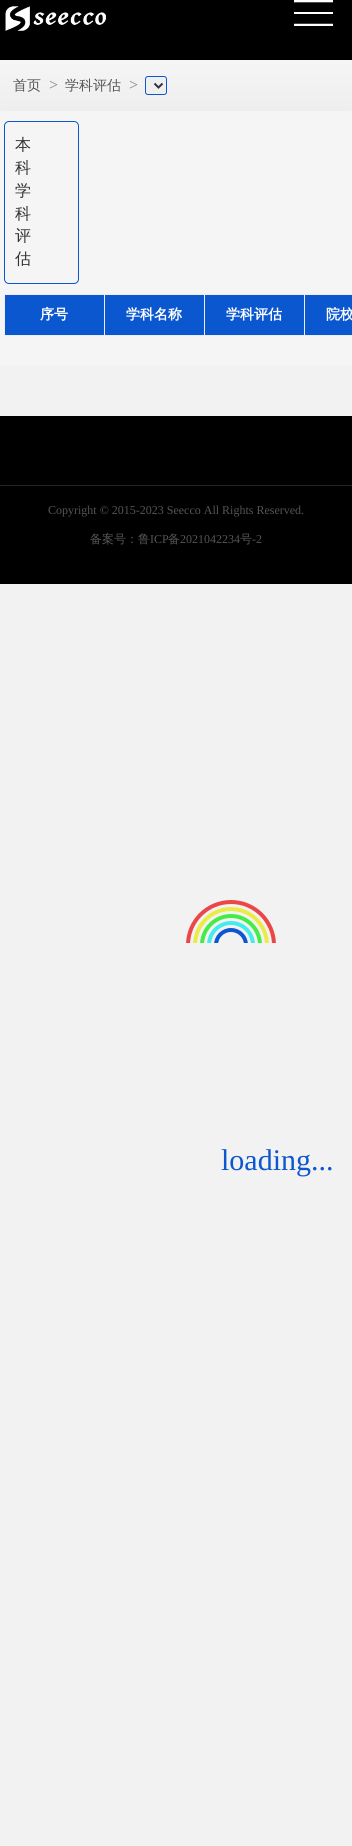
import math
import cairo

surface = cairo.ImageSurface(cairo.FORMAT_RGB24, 352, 1846)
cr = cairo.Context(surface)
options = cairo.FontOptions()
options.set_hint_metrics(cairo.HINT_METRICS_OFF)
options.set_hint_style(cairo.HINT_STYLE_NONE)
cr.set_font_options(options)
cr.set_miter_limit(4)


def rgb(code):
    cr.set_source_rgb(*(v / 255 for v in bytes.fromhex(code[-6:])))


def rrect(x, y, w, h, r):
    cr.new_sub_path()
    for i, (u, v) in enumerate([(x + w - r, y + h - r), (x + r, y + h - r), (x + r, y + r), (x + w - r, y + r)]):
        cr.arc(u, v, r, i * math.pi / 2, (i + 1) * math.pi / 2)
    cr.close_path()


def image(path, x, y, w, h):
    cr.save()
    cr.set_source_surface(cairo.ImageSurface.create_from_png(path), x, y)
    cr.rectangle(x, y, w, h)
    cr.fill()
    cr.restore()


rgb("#f2f2f2")
cr.paint()
rgb("#000000")
cr.rectangle(0, 0, 352, 60)
cr.fill()
image("img/1.png", 5, 6, 101, 25)
image("img/2.png", 294, 0, 39, 26)
rgb("#f5f5f5")
cr.rectangle(0, 60, 352, 306)
cr.fill()
gradient = cairo.LinearGradient(176, 111, 176, 60)
gradient.add_color_stop_rgba(0, 0.933, 0.933, 0.933, 1)
gradient.add_color_stop_rgba(1, 0.961, 0.961, 0.961, 1)
cr.set_source(gradient)
rrect(0, 60, 352, 51, 2)
cr.fill()
rgb("#efefef")
rrect(145.5, 76.5, 21, 18, 2.5)
cr.fill_preserve()
rgb("#0b57d0")
cr.set_line_width(1)
cr.stroke()
cr.new_path()
cr.move_to(154.5, 83.5)
cr.line_to(158.5, 87.5)
cr.line_to(162.5, 83.5)
rgb("#333333")
cr.set_line_width(2)
cr.stroke()
rrect(4.5, 121.5, 74, 162, 4.5)
rgb("#0b57d0")
cr.set_line_width(1)
cr.stroke()
for x, y, w, h, color in [
    (5, 295, 99, 40, "#0b57d0"),
    (304, 294, 48, 1, "#ebeef5"),
    (304, 335, 48, 1, "#ebeef5"),
    (304, 294, 1, 42, "#ebeef5"),
    (204, 294, 101, 1, "#ebeef5"),
    (204, 335, 101, 1, "#ebeef5"),
    (204, 294, 1, 42, "#ebeef5"),
    (104, 294, 101, 1, "#ebeef5"),
    (104, 335, 101, 1, "#ebeef5"),
    (104, 294, 1, 42, "#ebeef5"),
    (4, 294, 101, 1, "#ebeef5"),
    (4, 335, 101, 1, "#ebeef5"),
    (4, 294, 1, 42, "#ebeef5"),
    (105, 295, 99, 40, "#0b57d0"),
    (205, 295, 99, 40, "#0b57d0"),
    (305, 295, 47, 40, "#0b57d0"),
]:
    rgb(color)
    cr.rectangle(x, y, w, h)
    cr.fill()
cr.save()
cr.rectangle(181, 893, 100, 50)
cr.clip()
cr.arc(231, 945, 43, 0, 2 * math.pi)
rgb("#eb4747")
cr.set_line_width(4)
cr.stroke()
cr.arc(231, 945, 36, 0, 2 * math.pi)
rgb("#ebeb47")
cr.stroke()
cr.arc(231, 945, 29, 0, 2 * math.pi)
rgb("#47eb47")
cr.stroke()
cr.arc(231, 945, 22, 0, 2 * math.pi)
rgb("#47ebeb")
cr.stroke()
cr.arc(231, 945, 15, 0, 2 * math.pi)
rgb("#0b57d0")
cr.stroke()
cr.restore()
rgb("#000000")
cr.rectangle(0, 416, 352, 168)
cr.fill()
rgb("#262626")
cr.rectangle(0, 485, 352, 1)
cr.fill()
cr.select_font_face("WenQuanYi Zen Hei Medium")
cr.set_font_size(14)
rgb("#555555")
cr.move_to(13, 90)
cr.show_text("首页")
cr.select_font_face("Liberation Serif")
cr.set_font_size(16)
rgb("#7e7e7e")
cr.move_to(49, 90)
cr.show_text(">")
cr.select_font_face("WenQuanYi Zen Hei Medium")
cr.set_font_size(14)
rgb("#555555")
cr.move_to(65, 90)
cr.show_text("学科评估")
cr.select_font_face("Liberation Serif")
cr.set_font_size(16)
rgb("#7e7e7e")
cr.move_to(129, 90)
cr.show_text(">")
cr.select_font_face("WenQuanYi Zen Hei Medium")
rgb("#333333")
for x, y, s in [
    (15, 150, "本"),
    (15, 173, "科"),
    (15, 196, "学"),
    (15, 219, "科"),
    (15, 241, "评"),
    (15, 264, "估"),
]:
    cr.move_to(x, y)
    cr.show_text(s)
cr.select_font_face("WenQuanYi Zen Hei", cairo.FONT_SLANT_NORMAL, cairo.FONT_WEIGHT_BOLD)
cr.set_font_size(14)
rgb("#ffffff")
for x, y, s in [
    (40, 319, "序号"),
    (126, 319, "学科名称"),
    (226, 319, "学科评估"),
    (326, 319, "院校"),
]:
    cr.move_to(x, y)
    cr.show_text(s)
cr.select_font_face("Liberation Serif")
cr.set_font_size(30)
rgb("#0b57d0")
cr.move_to(221, 1170)
cr.show_text("loading...")
cr.set_font_size(12)
rgb("#555555")
cr.move_to(48, 514)
cr.show_text("Copyright © 2015-2023 Seecco All Rights Reserved.")
cr.select_font_face("WenQuanYi Zen Hei Medium")
cr.move_to(90, 543)
cr.show_text("备案号：鲁")
cr.select_font_face("Liberation Serif")
cr.move_to(150, 543)
cr.show_text("ICP")
cr.select_font_face("WenQuanYi Zen Hei Medium")
cr.move_to(168, 543)
cr.show_text("备")
cr.select_font_face("Liberation Serif")
cr.move_to(180, 543)
cr.show_text("2021042234")
cr.select_font_face("WenQuanYi Zen Hei Medium")
cr.move_to(240, 543)
cr.show_text("号")
cr.select_font_face("Liberation Serif")
cr.move_to(252, 543)
cr.show_text("-2")
surface.write_to_png("page.png")
